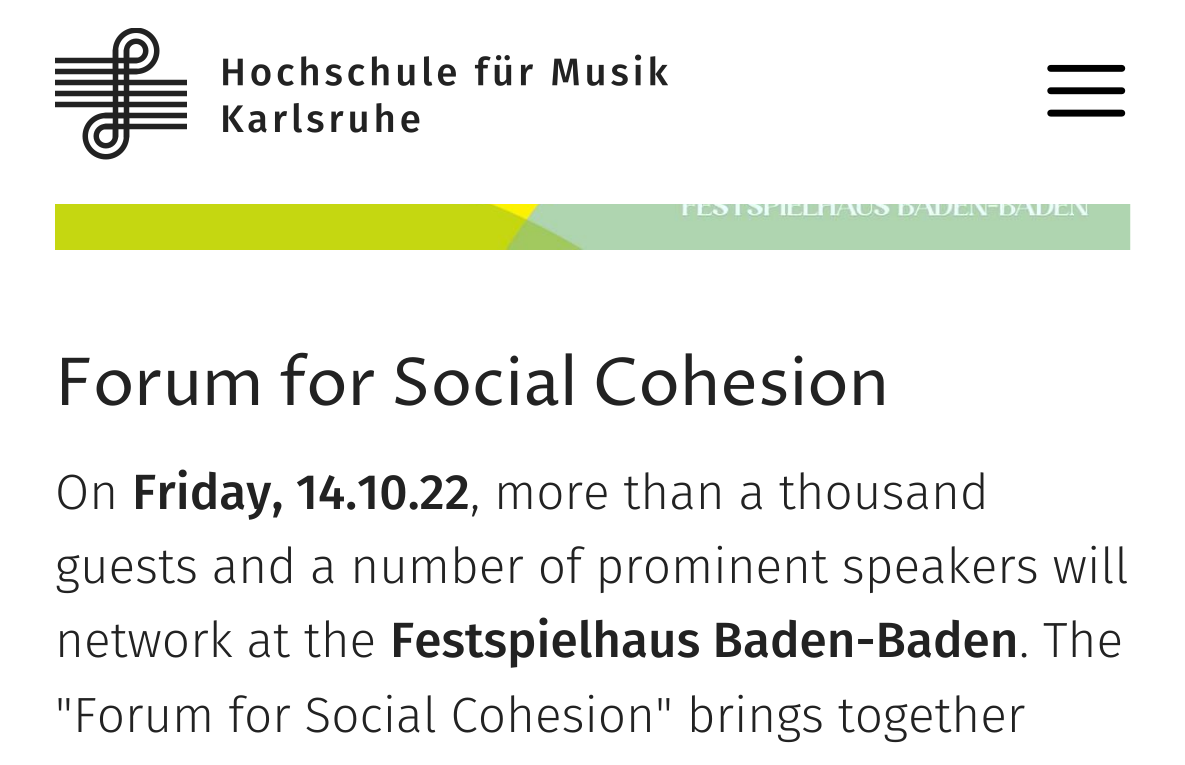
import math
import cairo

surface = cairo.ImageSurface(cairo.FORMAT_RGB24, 1185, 765)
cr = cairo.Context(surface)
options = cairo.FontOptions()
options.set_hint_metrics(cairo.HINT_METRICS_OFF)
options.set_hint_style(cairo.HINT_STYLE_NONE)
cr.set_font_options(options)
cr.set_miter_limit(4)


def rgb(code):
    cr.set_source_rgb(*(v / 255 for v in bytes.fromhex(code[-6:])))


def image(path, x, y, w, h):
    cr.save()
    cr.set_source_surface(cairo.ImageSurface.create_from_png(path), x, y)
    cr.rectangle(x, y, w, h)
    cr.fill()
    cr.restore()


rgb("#ffffff")
cr.paint()
image("img/1.png", 55, 28, 613, 132)
image("img/2.png", 1047, 64, 79, 53)
image("img/3.png", 55, 204, 1076, 46)
cr.select_font_face("Proza Libre")
cr.set_font_size(66)
rgb("#222222")
cr.move_to(55, 405)
cr.show_text("Forum for Social Cohesion")
cr.select_font_face("Fira Sans Light")
cr.set_font_size(49.5)
cr.move_to(55, 509)
cr.show_text("On")
cr.select_font_face("Fira Sans Medium")
cr.move_to(132, 509)
cr.show_text("Friday, 14.10.22")
cr.select_font_face("Fira Sans Light")
for x, y, s in [
    (470, 509, ", more than a thousand"),
    (55, 583, "guests and a number of prominent speakers will"),
    (55, 657, "network at the"),
]:
    cr.move_to(x, y)
    cr.show_text(s)
cr.select_font_face("Fira Sans Medium")
cr.move_to(390, 657)
cr.show_text("Festspielhaus Baden-Baden")
cr.select_font_face("Fira Sans Light")
cr.move_to(1019, 657)
cr.show_text(". The")
cr.move_to(55, 732)
cr.show_text("\"Forum for Social Cohesion\" brings together")
surface.write_to_png("page.png")
